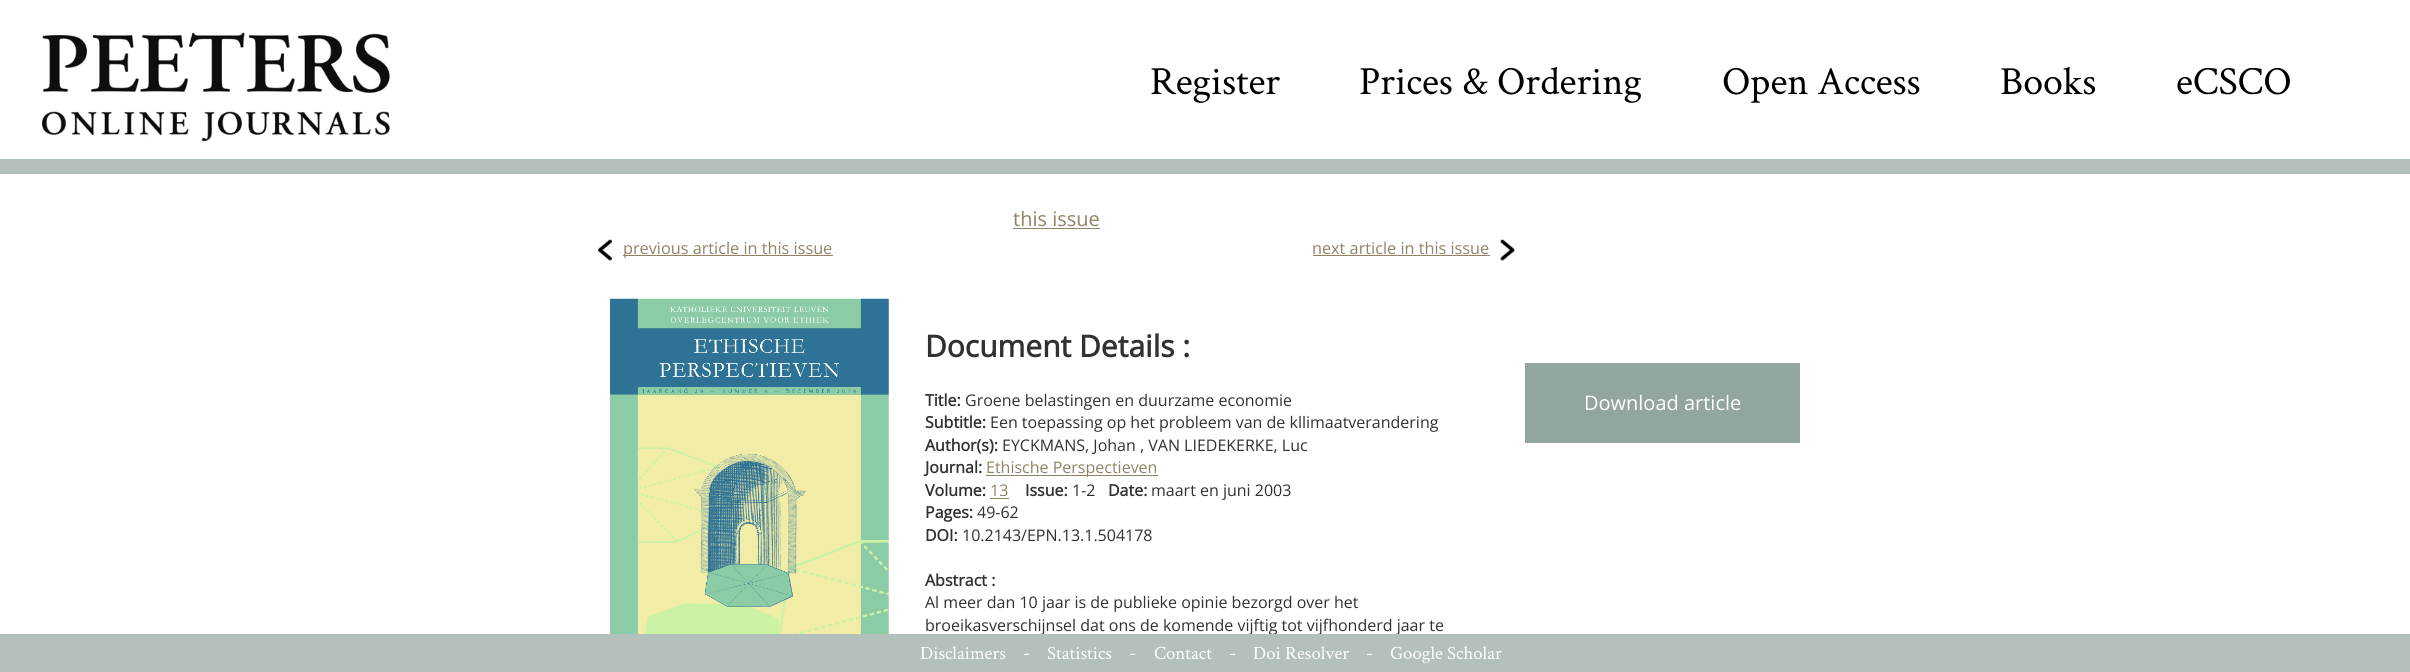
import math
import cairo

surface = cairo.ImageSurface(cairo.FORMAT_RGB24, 2410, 672)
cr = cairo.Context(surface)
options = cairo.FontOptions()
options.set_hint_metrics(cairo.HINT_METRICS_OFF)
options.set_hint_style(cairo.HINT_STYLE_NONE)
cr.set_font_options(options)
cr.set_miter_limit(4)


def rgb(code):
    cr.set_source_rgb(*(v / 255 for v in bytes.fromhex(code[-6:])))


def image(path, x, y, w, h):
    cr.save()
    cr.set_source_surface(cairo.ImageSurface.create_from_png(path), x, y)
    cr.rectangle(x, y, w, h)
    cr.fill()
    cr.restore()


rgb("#ffffff")
cr.paint()
image("img/1.png", 41, 32, 349, 110)
rgb("#b3c0bc")
cr.rectangle(0, 159, 2410, 15)
cr.fill()
rgb("#908263")
cr.rectangle(1013, 228, 87, 1)
cr.fill()
image("img/2.png", 598, 239, 14, 22)
cr.rectangle(623, 255, 210, 1)
cr.fill()
cr.rectangle(1313, 255, 177, 1)
cr.fill()
image("img/3.png", 1500, 239, 15, 22)
image("img/4.png", 610, 298, 279, 336)
for x, y, w, h, color in [
    (986, 475, 172, 1, "#908263"),
    (990, 498, 19, 1, "#908263"),
    (1525, 363, 275, 80, "#93a5a0"),
]:
    rgb(color)
    cr.rectangle(x, y, w, h)
    cr.fill()
cr.select_font_face("Crimson Text")
cr.set_font_size(40)
rgb("#000000")
for x, y, s in [
    (1150, 94, "Register"),
    (1359, 94, "Prices & Ordering"),
    (1722, 94, "Open Access"),
    (2000, 94, "Books"),
    (2176, 94, "eCSCO"),
]:
    cr.move_to(x, y)
    cr.show_text(s)
cr.select_font_face("Open Sans")
cr.set_font_size(20)
rgb("#908263")
cr.move_to(1013, 226)
cr.show_text("this issue")
cr.set_font_size(16.25)
cr.move_to(623, 254)
cr.show_text("previous article in this issue")
cr.move_to(1312, 254)
cr.show_text("next article in this issue")
cr.select_font_face("Open Sans", cairo.FONT_SLANT_NORMAL, cairo.FONT_WEIGHT_BOLD)
cr.set_font_size(30)
rgb("#32312e")
cr.move_to(925, 357)
cr.show_text("Document Details :")
cr.set_font_size(16)
cr.move_to(925, 406)
cr.show_text("Title:")
cr.select_font_face("Open Sans")
cr.move_to(965, 406)
cr.show_text("Groene belastingen en duurzame economie")
cr.select_font_face("Open Sans", cairo.FONT_SLANT_NORMAL, cairo.FONT_WEIGHT_BOLD)
cr.move_to(925, 428)
cr.show_text("Subtitle:")
cr.select_font_face("Open Sans")
cr.move_to(990, 428)
cr.show_text("Een toepassing op het probleem van de kllimaatverandering")
cr.select_font_face("Open Sans", cairo.FONT_SLANT_NORMAL, cairo.FONT_WEIGHT_BOLD)
cr.move_to(925, 451)
cr.show_text("Author(s):")
cr.select_font_face("Open Sans")
cr.move_to(1002, 451)
cr.show_text("EYCKMANS, Johan , VAN LIEDEKERKE, Luc")
cr.select_font_face("Open Sans", cairo.FONT_SLANT_NORMAL, cairo.FONT_WEIGHT_BOLD)
cr.move_to(925, 473)
cr.show_text("Journal:")
cr.select_font_face("Open Sans")
rgb("#908263")
cr.move_to(986, 473)
cr.show_text("Ethische Perspectieven")
cr.select_font_face("Open Sans", cairo.FONT_SLANT_NORMAL, cairo.FONT_WEIGHT_BOLD)
rgb("#32312e")
cr.move_to(925, 496)
cr.show_text("Volume:")
cr.select_font_face("Open Sans")
rgb("#908263")
cr.move_to(990, 496)
cr.show_text("13")
cr.select_font_face("Open Sans", cairo.FONT_SLANT_NORMAL, cairo.FONT_WEIGHT_BOLD)
rgb("#32312e")
cr.move_to(1025, 496)
cr.show_text("Issue:")
cr.select_font_face("Open Sans")
cr.move_to(1072, 496)
cr.show_text("1-2")
cr.select_font_face("Open Sans", cairo.FONT_SLANT_NORMAL, cairo.FONT_WEIGHT_BOLD)
cr.move_to(1108, 496)
cr.show_text("Date:")
cr.select_font_face("Open Sans")
cr.move_to(1151, 496)
cr.show_text("maart en juni 2003")
cr.select_font_face("Open Sans", cairo.FONT_SLANT_NORMAL, cairo.FONT_WEIGHT_BOLD)
cr.move_to(925, 518)
cr.show_text("Pages:")
cr.select_font_face("Open Sans")
cr.move_to(977, 518)
cr.show_text("49-62")
cr.select_font_face("Open Sans", cairo.FONT_SLANT_NORMAL, cairo.FONT_WEIGHT_BOLD)
cr.move_to(925, 541)
cr.show_text("DOI:")
cr.select_font_face("Open Sans")
cr.move_to(962, 541)
cr.show_text("10.2143/EPN.13.1.504178")
cr.select_font_face("Open Sans", cairo.FONT_SLANT_NORMAL, cairo.FONT_WEIGHT_BOLD)
cr.move_to(925, 586)
cr.show_text("Abstract :")
cr.select_font_face("Open Sans")
cr.move_to(925, 608)
cr.show_text("Al meer dan 10 jaar is de publieke opinie bezorgd over het")
cr.move_to(925, 631)
cr.show_text("broeikasverschijnsel dat ons de komende vijftig tot vijfhonderd jaar te")
cr.set_font_size(20)
rgb("#ffffff")
cr.move_to(1584, 410)
cr.show_text("Download article")
rgb("#b3c0bc")
cr.rectangle(0, 634, 2410, 38)
cr.fill()
cr.select_font_face("Crimson Text")
cr.set_font_size(18.75)
rgb("#ffffff")
cr.move_to(920, 659)
cr.show_text("Disclaimers")
cr.set_font_size(20)
cr.move_to(1023, 659)
cr.show_text("-")
cr.set_font_size(18.75)
cr.move_to(1047, 659)
cr.show_text("Statistics")
cr.set_font_size(20)
cr.move_to(1129, 659)
cr.show_text("-")
cr.set_font_size(18.75)
cr.move_to(1154, 659)
cr.show_text("Contact")
cr.set_font_size(20)
cr.move_to(1229, 659)
cr.show_text("-")
cr.set_font_size(18.75)
cr.move_to(1253, 659)
cr.show_text("Doi Resolver")
cr.set_font_size(20)
cr.move_to(1366, 659)
cr.show_text("-")
cr.set_font_size(18.75)
cr.move_to(1390, 659)
cr.show_text("Google Scholar")
surface.write_to_png("page.png")
